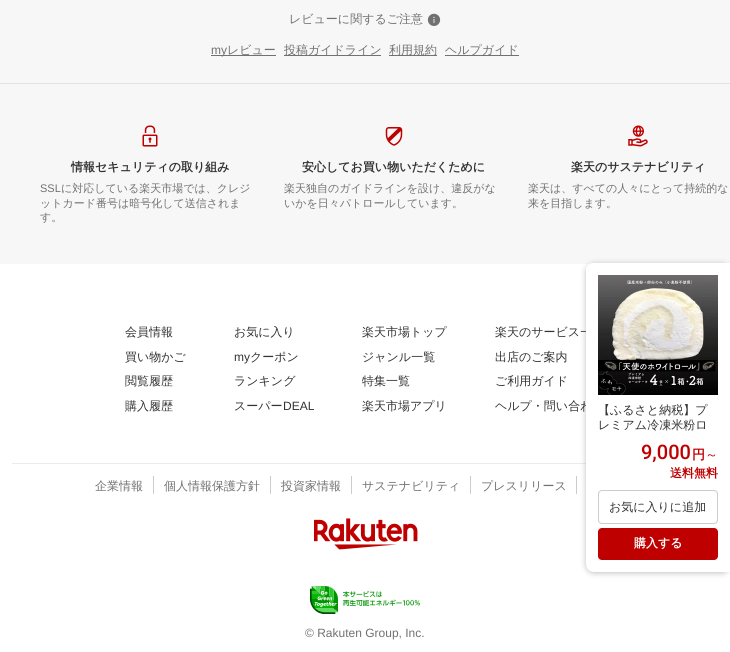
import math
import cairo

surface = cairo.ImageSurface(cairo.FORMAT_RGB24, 730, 652)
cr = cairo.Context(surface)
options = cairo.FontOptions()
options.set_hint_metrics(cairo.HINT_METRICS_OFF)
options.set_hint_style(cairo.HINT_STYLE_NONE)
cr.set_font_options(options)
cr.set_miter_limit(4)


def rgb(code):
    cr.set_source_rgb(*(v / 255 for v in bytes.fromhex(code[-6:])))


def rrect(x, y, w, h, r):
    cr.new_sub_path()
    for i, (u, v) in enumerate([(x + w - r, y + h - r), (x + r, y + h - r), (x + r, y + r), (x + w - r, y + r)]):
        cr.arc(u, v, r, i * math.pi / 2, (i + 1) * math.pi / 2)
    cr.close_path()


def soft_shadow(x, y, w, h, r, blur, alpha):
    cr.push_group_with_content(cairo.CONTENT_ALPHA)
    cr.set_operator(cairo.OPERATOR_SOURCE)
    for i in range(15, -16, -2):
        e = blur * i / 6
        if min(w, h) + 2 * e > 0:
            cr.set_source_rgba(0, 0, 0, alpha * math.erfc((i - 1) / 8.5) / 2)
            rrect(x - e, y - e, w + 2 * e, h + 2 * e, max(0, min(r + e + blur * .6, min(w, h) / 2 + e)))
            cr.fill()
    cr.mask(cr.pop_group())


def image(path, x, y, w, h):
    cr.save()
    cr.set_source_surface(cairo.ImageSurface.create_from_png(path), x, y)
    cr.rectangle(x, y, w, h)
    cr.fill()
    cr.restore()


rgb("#ffffff")
cr.paint()
rgb("#f7f7f7")
cr.rectangle(0, 0, 730, 83)
cr.fill()
rgb("#e3e3e3")
cr.rectangle(0, 83, 730, 1)
cr.fill()
image("img/1.png", 427, 13, 14, 13)
for x, y, w, h, color in [
    (211, 55, 65, 1, "#717171"),
    (284, 55, 97, 1, "#717171"),
    (389, 55, 48, 1, "#717171"),
    (445, 55, 74, 1, "#717171"),
    (0, 84, 730, 180, "#f7f7f7"),
]:
    rgb(color)
    cr.rectangle(x, y, w, h)
    cr.fill()
image("img/2.png", 142, 125, 16, 22)
image("img/3.png", 385, 127, 18, 19)
image("img/4.png", 628, 125, 20, 22)
for x, y, w, h, color in [
    (12, 463, 574, 1, "#ebebeb"),
    (153, 476, 1, 18, "#cccccc"),
    (270, 476, 1, 18, "#cccccc"),
    (351, 476, 1, 18, "#cccccc"),
    (470, 476, 1, 18, "#cccccc"),
    (576, 476, 1, 18, "#cccccc"),
]:
    rgb(color)
    cr.rectangle(x, y, w, h)
    cr.fill()
image("img/5.png", 314, 518, 104, 32)
image("img/6.png", 310, 586, 110, 28)
rgb("#000000")
soft_shadow(586, 264, 144, 309, 8, 3, 0.25)
cr.select_font_face("WenQuanYi Zen Hei Medium")
cr.set_font_size(12)
rgb("#717171")
cr.move_to(289, 23)
cr.show_text("レビューに関するご注意")
cr.select_font_face("Liberation Sans")
cr.move_to(211, 54)
cr.show_text("my")
cr.select_font_face("WenQuanYi Zen Hei Medium")
for x, y, s in [
    (227, 54, "レビュー"),
    (284, 54, "投稿ガイドライン"),
    (389, 54, "利用規約"),
    (445, 54, "ヘルプガイド"),
]:
    cr.move_to(x, y)
    cr.show_text(s)
cr.select_font_face("WenQuanYi Zen Hei", cairo.FONT_SLANT_NORMAL, cairo.FONT_WEIGHT_BOLD)
rgb("#333333")
cr.move_to(71, 171)
cr.show_text("情報セキュリティの取り組み")
cr.select_font_face("Liberation Sans")
cr.set_font_size(11)
rgb("#717171")
cr.move_to(40, 192)
cr.show_text("SSL")
cr.select_font_face("WenQuanYi Zen Hei Medium")
for x, y, s in [
    (61, 192, "に対応している楽天市場では、クレジ"),
    (40, 207, "ットカード番号は暗号化して送信されま"),
    (40, 221, "す。"),
]:
    cr.move_to(x, y)
    cr.show_text(s)
cr.select_font_face("WenQuanYi Zen Hei", cairo.FONT_SLANT_NORMAL, cairo.FONT_WEIGHT_BOLD)
cr.set_font_size(12)
rgb("#333333")
cr.move_to(302, 171)
cr.show_text("安心してお買い物いただくために")
cr.select_font_face("WenQuanYi Zen Hei Medium")
cr.set_font_size(11)
rgb("#717171")
cr.move_to(284, 192)
cr.show_text("楽天独自のガイドラインを設け、違反がな")
cr.move_to(284, 207)
cr.show_text("いかを日々パトロールしています。")
cr.select_font_face("WenQuanYi Zen Hei", cairo.FONT_SLANT_NORMAL, cairo.FONT_WEIGHT_BOLD)
cr.set_font_size(12)
rgb("#333333")
cr.move_to(571, 171)
cr.show_text("楽天のサステナビリティ")
cr.select_font_face("WenQuanYi Zen Hei Medium")
cr.set_font_size(11)
rgb("#717171")
cr.move_to(528, 192)
cr.show_text("楽天は、すべての人々にとって持続的な")
cr.move_to(528, 207)
cr.show_text("来を目指します。")
cr.set_font_size(12)
rgb("#333333")
for x, y, s in [
    (125, 336, "会員情報"),
    (125, 361, "買い物かご"),
    (125, 385, "閲覧履歴"),
    (125, 410, "購入履歴"),
    (234, 336, "お気に入り"),
]:
    cr.move_to(x, y)
    cr.show_text(s)
cr.select_font_face("Liberation Sans")
cr.move_to(234, 361)
cr.show_text("my")
cr.select_font_face("WenQuanYi Zen Hei Medium")
for x, y, s in [
    (250, 361, "クーポン"),
    (234, 385, "ランキング"),
    (234, 410, "スーパー"),
]:
    cr.move_to(x, y)
    cr.show_text(s)
cr.select_font_face("Liberation Sans")
cr.move_to(283, 410)
cr.show_text("DEAL")
cr.select_font_face("WenQuanYi Zen Hei Medium")
for x, y, s in [
    (362, 336, "楽天市場トップ"),
    (362, 361, "ジャンル一覧"),
    (362, 385, "特集一覧"),
    (362, 410, "楽天市場アプリ"),
    (495, 336, "楽天のサービス一"),
    (495, 361, "出店のご案内"),
    (495, 385, "ご利用ガイド"),
    (495, 410, "ヘルプ・問い合わ"),
]:
    cr.move_to(x, y)
    cr.show_text(s)
rgb("#717171")
for x, y, s in [
    (95, 490, "企業情報"),
    (164, 490, "個人情報保護方針"),
    (281, 490, "投資家情報"),
    (362, 490, "サステナビリティ"),
    (481, 490, "プレスリリース"),
]:
    cr.move_to(x, y)
    cr.show_text(s)
cr.select_font_face("Liberation Sans")
cr.move_to(305, 637)
cr.show_text("© Rakuten Group, Inc.")
rgb("#ffffff")
cr.new_path()
cr.move_to(593, 263)
cr.line_to(730, 263)
cr.line_to(730, 572)
cr.line_to(594, 572)
cr.curve_to(589.5, 572, 586, 568.5, 586, 564)
cr.line_to(586, 270)
cr.curve_to(586, 266, 589, 263, 593, 263)
cr.close_path()
cr.fill()
image("img/7.png", 598, 275, 120, 120)
cr.select_font_face("WenQuanYi Zen Hei Medium")
rgb("#333333")
cr.move_to(598, 414)
cr.show_text("【ふるさと納税】プ")
cr.move_to(598, 429)
cr.show_text("レミアム冷凍米粉ロ")
cr.select_font_face("Roboto Medium")
cr.set_font_size(20)
rgb("#bf0000")
cr.move_to(641, 459)
cr.show_text("9,000")
cr.select_font_face("WenQuanYi Zen Hei", cairo.FONT_SLANT_NORMAL, cairo.FONT_WEIGHT_BOLD)
cr.set_font_size(13)
cr.move_to(692, 459)
cr.show_text("円")
cr.select_font_face("WenQuanYi Zen Hei Medium")
cr.move_to(705, 459)
cr.show_text("～")
cr.select_font_face("WenQuanYi Zen Hei", cairo.FONT_SLANT_NORMAL, cairo.FONT_WEIGHT_BOLD)
cr.set_font_size(12)
cr.move_to(670, 477)
cr.show_text("送料無料")
rrect(598.5, 490.5, 119, 33, 3.5)
rgb("#cccccc")
cr.set_line_width(1)
cr.stroke()
cr.select_font_face("WenQuanYi Zen Hei Medium")
rgb("#333333")
cr.move_to(609, 511)
cr.show_text("お気に入りに追加")
rgb("#bf0000")
rrect(598, 528, 120, 32, 4)
cr.fill()
cr.select_font_face("WenQuanYi Zen Hei", cairo.FONT_SLANT_NORMAL, cairo.FONT_WEIGHT_BOLD)
rgb("#ffffff")
cr.move_to(634, 547)
cr.show_text("購入する")
surface.write_to_png("page.png")
